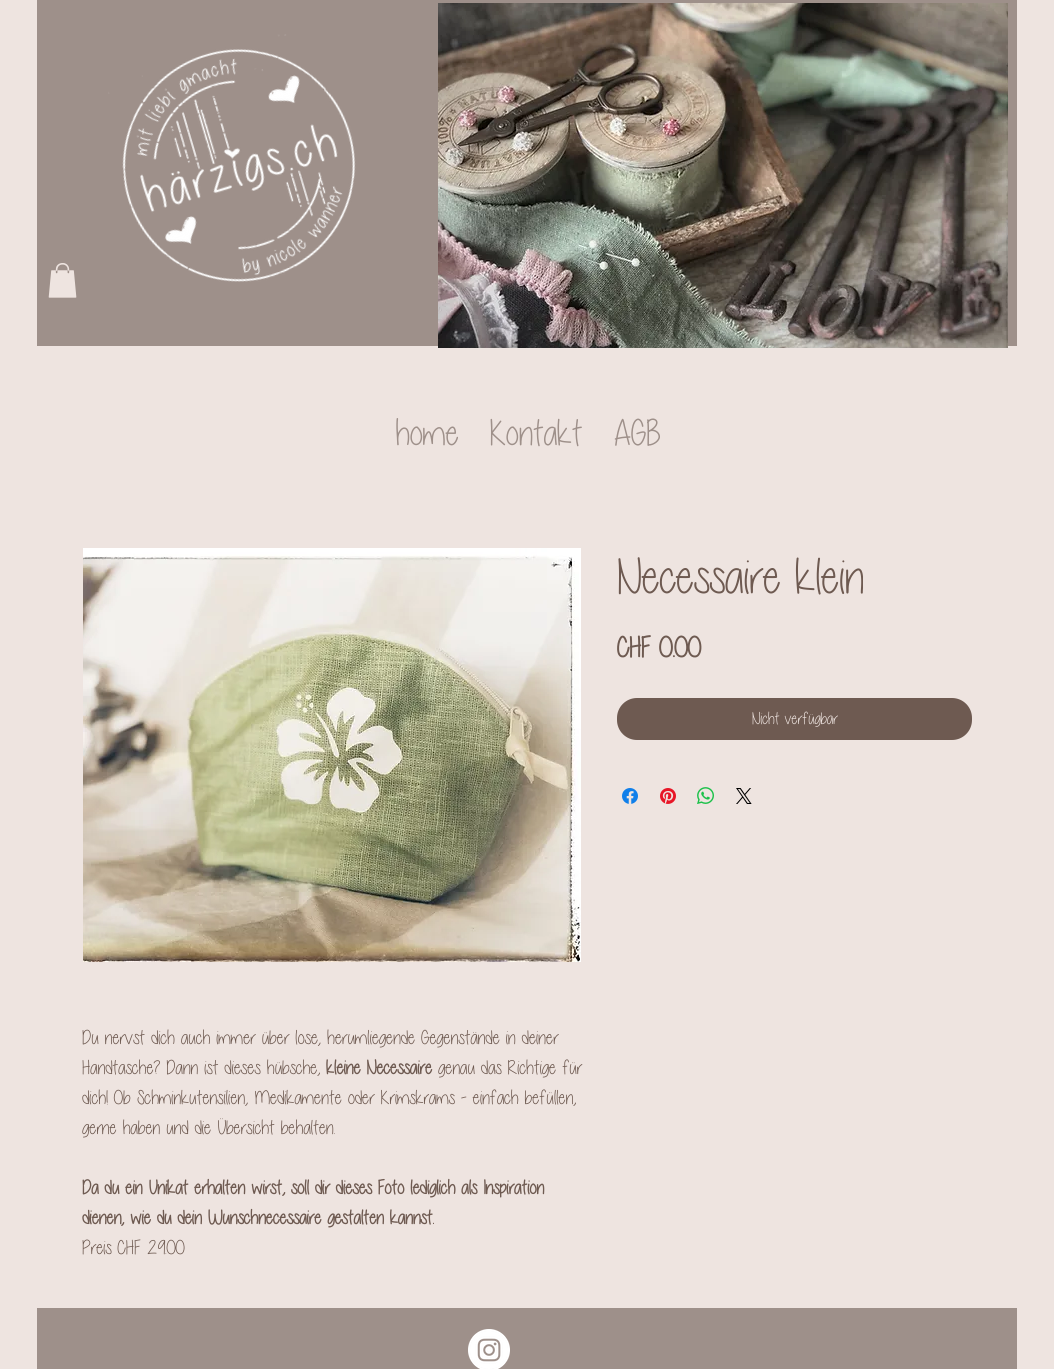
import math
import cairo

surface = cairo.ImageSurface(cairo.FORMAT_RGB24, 1054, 1369)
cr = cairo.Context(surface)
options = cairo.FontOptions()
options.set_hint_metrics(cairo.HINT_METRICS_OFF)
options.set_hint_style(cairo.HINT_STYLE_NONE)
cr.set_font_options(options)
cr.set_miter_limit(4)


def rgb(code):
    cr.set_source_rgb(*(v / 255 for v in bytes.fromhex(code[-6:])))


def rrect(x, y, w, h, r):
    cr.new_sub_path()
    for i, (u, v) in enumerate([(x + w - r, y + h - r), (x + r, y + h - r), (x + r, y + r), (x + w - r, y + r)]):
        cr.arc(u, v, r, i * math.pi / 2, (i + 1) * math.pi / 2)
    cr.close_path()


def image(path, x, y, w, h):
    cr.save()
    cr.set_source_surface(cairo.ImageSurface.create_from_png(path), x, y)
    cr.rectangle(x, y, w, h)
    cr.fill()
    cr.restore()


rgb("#eee4e0")
cr.paint()
rgb("#9e908a")
cr.rectangle(37, 0, 980, 346)
cr.fill()
image("img/1.png", 48, 263, 29, 35)
image("img/2.png", 108, 34, 248, 248)
image("img/3.png", 438, 3, 570, 345)
rgb("#6e5a51")
rrect(617, 698, 355, 42, 20)
cr.fill()
image("img/4.png", 622, 788, 16, 16)
image("img/5.png", 660, 788, 16, 16)
image("img/6.png", 697, 787, 17, 17)
image("img/7.png", 736, 788, 16, 16)
image("img/8.png", 83, 548, 498, 414)
rgb("#9e908a")
cr.rectangle(37, 1308, 980, 61)
cr.fill()
image("img/9.png", 468, 1329, 42, 40)
cr.select_font_face("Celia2 Medium")
cr.set_font_size(37)
for x, y, s in [
    (395, 445, "home"),
    (489, 445, "Kontakt"),
    (613, 445, "AGB"),
]:
    cr.move_to(x, y)
    cr.show_text(s)
cr.set_font_size(50)
rgb("#6e5a51")
cr.move_to(617, 593)
cr.show_text("Necessaire klein")
cr.select_font_face("Celia2", cairo.FONT_SLANT_NORMAL, cairo.FONT_WEIGHT_BOLD)
cr.set_font_size(29)
cr.move_to(617, 657)
cr.show_text("CHF 0.00")
cr.select_font_face("Celia2 Medium")
cr.set_font_size(17)
rgb("#eee4e0")
cr.move_to(752, 724)
cr.show_text("Nicht verfügbar")
cr.set_font_size(20)
rgb("#6e5a51")
cr.move_to(82, 1044)
cr.show_text("Du nervst dich auch immer über lose, herumliegende Gegenstände in deiner")
cr.move_to(82, 1074)
cr.show_text("Handtasche? Dann ist dieses hübsche,")
cr.select_font_face("Celia2", cairo.FONT_SLANT_NORMAL, cairo.FONT_WEIGHT_BOLD)
cr.move_to(326, 1074)
cr.show_text("kleine Necessaire")
cr.select_font_face("Celia2 Medium")
for x, y, s in [
    (438, 1074, "genau das Richtige für"),
    (82, 1104, "dich! Ob Schminkutensilien, Medikamente oder Krimskrams - einfach befüllen,"),
    (82, 1134, "gerne haben und die Übersicht behalten."),
]:
    cr.move_to(x, y)
    cr.show_text(s)
cr.select_font_face("Celia2", cairo.FONT_SLANT_NORMAL, cairo.FONT_WEIGHT_BOLD)
cr.move_to(82, 1194)
cr.show_text("Da du ein Unikat erhalten wirst, soll dir dieses Foto lediglich als Inspiration")
cr.move_to(82, 1224)
cr.show_text("dienen, wie du dein Wunschnecessaire gestalten kannst.")
cr.select_font_face("Celia2 Medium")
cr.move_to(82, 1254)
cr.show_text("Preis CHF 29.00")
surface.write_to_png("page.png")
